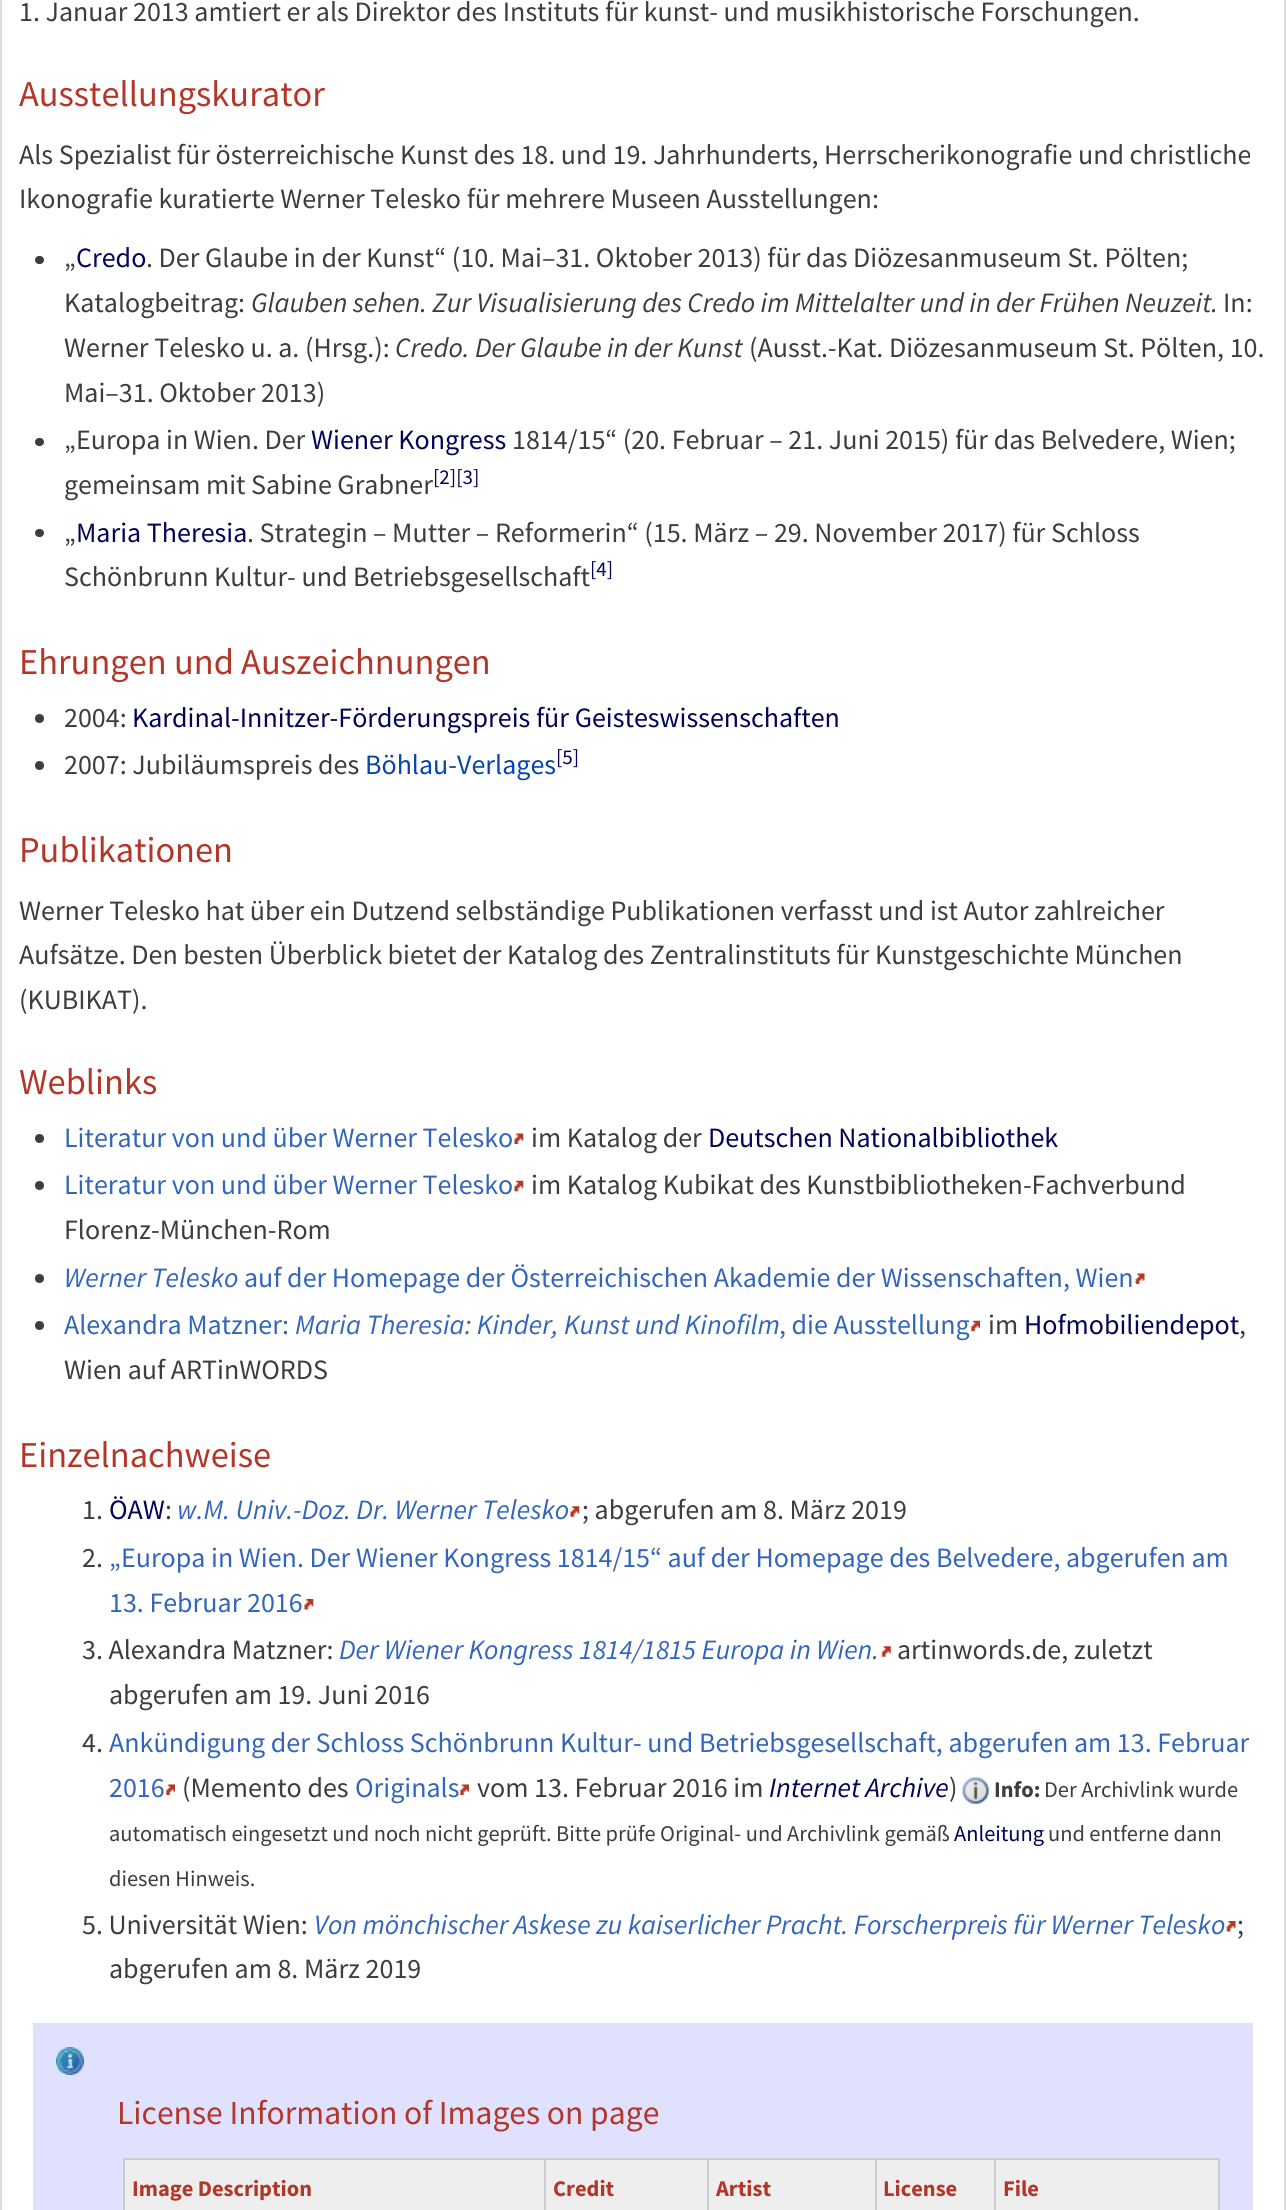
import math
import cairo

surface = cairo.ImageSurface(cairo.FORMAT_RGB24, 1286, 2210)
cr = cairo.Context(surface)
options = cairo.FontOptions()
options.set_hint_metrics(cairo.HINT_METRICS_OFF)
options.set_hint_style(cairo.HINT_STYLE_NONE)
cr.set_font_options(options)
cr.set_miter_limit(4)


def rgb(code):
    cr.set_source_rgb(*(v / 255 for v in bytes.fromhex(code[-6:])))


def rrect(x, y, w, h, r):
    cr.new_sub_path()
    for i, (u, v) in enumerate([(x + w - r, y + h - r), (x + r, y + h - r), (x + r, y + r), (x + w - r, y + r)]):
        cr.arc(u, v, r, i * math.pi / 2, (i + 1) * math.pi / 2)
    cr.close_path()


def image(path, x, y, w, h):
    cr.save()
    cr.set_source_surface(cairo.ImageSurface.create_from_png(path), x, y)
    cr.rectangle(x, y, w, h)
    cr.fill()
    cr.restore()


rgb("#ffffff")
cr.paint()
cr.rectangle(1, -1, 1284, 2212)
rgb("#dddddd")
cr.stroke()
rgb("#3d3d3d")
rrect(35, 256, 9, 8, 4)
cr.fill()
rrect(35, 438, 9, 8, 4)
cr.fill()
rrect(35, 529, 9, 8, 4)
cr.fill()
cr.arc(39.5, 718.5, 4.5, 0, 2 * math.pi)
cr.fill()
cr.arc(39.5, 765.5, 4.5, 0, 2 * math.pi)
cr.fill()
cr.arc(39.5, 1138.5, 4.5, 0, 2 * math.pi)
cr.fill()
image("img/1.png", 514, 1133, 10, 11)
cr.arc(39.5, 1185.5, 4.5, 0, 2 * math.pi)
cr.fill()
image("img/2.png", 514, 1180, 10, 12)
cr.arc(39.5, 1278.5, 4.5, 0, 2 * math.pi)
cr.fill()
image("img/3.png", 1135, 1273, 10, 11)
cr.arc(39.5, 1325.5, 4.5, 0, 2 * math.pi)
cr.fill()
image("img/4.png", 970, 1320, 10, 12)
image("img/5.png", 570, 1506, 10, 11)
image("img/6.png", 304, 1599, 10, 11)
image("img/7.png", 881, 1646, 10, 11)
image("img/8.png", 165, 1784, 10, 11)
image("img/8.png", 459, 1784, 10, 11)
image("img/9.png", 962, 1777, 27, 27)
image("img/10.png", 1226, 1921, 10, 11)
rgb("#e0e0ff")
cr.rectangle(33, 2023, 1220, 187)
cr.fill()
image("img/11.png", 56, 2047, 28, 28)
for x, y, w, h, color in [
    (125, 2160, 419, 50, "#eeeeee"),
    (994, 2158, 226, 2, "#cccccc"),
    (994, 2158, 2, 52, "#cccccc"),
    (875, 2158, 121, 2, "#cccccc"),
    (875, 2158, 2, 52, "#cccccc"),
    (707, 2158, 170, 2, "#cccccc"),
    (707, 2158, 2, 52, "#cccccc"),
    (544, 2158, 165, 2, "#cccccc"),
    (544, 2158, 2, 52, "#cccccc"),
    (123, 2158, 423, 2, "#cccccc"),
    (123, 2158, 2, 52, "#cccccc"),
    (546, 2160, 161, 50, "#eeeeee"),
    (709, 2160, 166, 50, "#eeeeee"),
    (877, 2160, 117, 50, "#eeeeee"),
    (996, 2160, 222, 50, "#eeeeee"),
    (1218, 2158, 2, 52, "#cccccc"),
]:
    rgb(color)
    cr.rectangle(x, y, w, h)
    cr.fill()
cr.select_font_face("Source Sans Pro")
cr.set_font_size(28)
rgb("#3d3d3d")
cr.move_to(19, 21)
cr.show_text("1. Januar 2013 amtiert er als Direktor des Instituts für kunst- und musikhistorische Forschungen.")
cr.set_font_size(36.4)
rgb("#b23729")
cr.move_to(19, 106)
cr.show_text("Ausstellungskurator")
cr.set_font_size(28)
rgb("#3d3d3d")
cr.move_to(19, 164)
cr.show_text("Als Spezialist für österreichische Kunst des 18. und 19. Jahrhunderts, Herrscherikonografie und christliche")
cr.move_to(19, 208)
cr.show_text("Ikonografie kuratierte Werner Telesko für mehrere Museen Ausstellungen:")
rgb("#030357")
cr.move_to(76, 267)
cr.show_text("Credo")
rgb("#3d3d3d")
for x, y, s in [
    (146, 267, ". Der Glaube in der Kunst“ (10. Mai–31. Oktober 2013) für das Diözesanmuseum St. Pölten;"),
    (64, 267, "„"),
    (64, 312, "Katalogbeitrag:"),
]:
    cr.move_to(x, y)
    cr.show_text(s)
cr.select_font_face("Source Sans Pro", cairo.FONT_SLANT_ITALIC)
cr.move_to(251, 312)
cr.show_text("Glauben sehen. Zur Visualisierung des Credo im Mittelalter und in der Frühen Neuzeit.")
cr.select_font_face("Source Sans Pro")
cr.move_to(1223, 312)
cr.show_text("In:")
cr.move_to(64, 357)
cr.show_text("Werner Telesko u. a. (Hrsg.):")
cr.select_font_face("Source Sans Pro", cairo.FONT_SLANT_ITALIC)
cr.move_to(395, 357)
cr.show_text("Credo. Der Glaube in der Kunst")
cr.select_font_face("Source Sans Pro")
for x, y, s in [
    (749, 357, "(Ausst.-Kat. Diözesanmuseum St. Pölten, 10."),
    (64, 402, "Mai–31. Oktober 2013)"),
    (64, 449, "„Europa in Wien. Der"),
]:
    cr.move_to(x, y)
    cr.show_text(s)
rgb("#030357")
cr.move_to(311, 449)
cr.show_text("Wiener Kongress")
rgb("#3d3d3d")
cr.move_to(512, 449)
cr.show_text("1814/15“ (20. Februar – 21. Juni 2015) für das Belvedere, Wien;")
cr.move_to(64, 494)
cr.show_text("gemeinsam mit Sabine Grabner")
cr.set_font_size(21)
rgb("#030357")
cr.move_to(433, 484)
cr.show_text("[2][3]")
cr.set_font_size(28)
cr.move_to(76, 542)
cr.show_text("Maria Theresia")
rgb("#3d3d3d")
for x, y, s in [
    (247, 542, ". Strategin – Mutter – Reformerin“ (15. März – 29. November 2017) für Schloss"),
    (64, 542, "„"),
    (64, 586, "Schönbrunn Kultur- und Betriebsgesellschaft"),
]:
    cr.move_to(x, y)
    cr.show_text(s)
cr.set_font_size(21)
rgb("#030357")
cr.move_to(590, 576)
cr.show_text("[4]")
cr.set_font_size(36.4)
rgb("#b23729")
cr.move_to(19, 674)
cr.show_text("Ehrungen und Auszeichnungen")
cr.set_font_size(28)
rgb("#3d3d3d")
cr.move_to(64, 727)
cr.show_text("2004:")
rgb("#030357")
cr.move_to(132, 727)
cr.show_text("Kardinal-Innitzer-Förderungspreis für Geisteswissenschaften")
rgb("#3d3d3d")
cr.move_to(64, 774)
cr.show_text("2007: Jubiläumspreis des")
rgb("#0645ad")
cr.move_to(365, 774)
cr.show_text("Böhlau-Verlages")
cr.set_font_size(21)
rgb("#030357")
cr.move_to(556, 764)
cr.show_text("[5]")
cr.set_font_size(36.4)
rgb("#b23729")
cr.move_to(19, 862)
cr.show_text("Publikationen")
cr.set_font_size(28)
rgb("#3d3d3d")
for x, y, s in [
    (19, 920, "Werner Telesko hat über ein Dutzend selbständige Publikationen verfasst und ist Autor zahlreicher"),
    (19, 964, "Aufsätze. Den besten Überblick bietet der Katalog des Zentralinstituts für Kunstgeschichte München"),
    (19, 1009, "(KUBIKAT)."),
]:
    cr.move_to(x, y)
    cr.show_text(s)
cr.set_font_size(36.4)
rgb("#b23729")
cr.move_to(19, 1094)
cr.show_text("Weblinks")
cr.set_font_size(28)
rgb("#3366bb")
cr.move_to(64, 1147)
cr.show_text("Literatur von und über Werner Telesko")
rgb("#3d3d3d")
cr.move_to(531, 1147)
cr.show_text("im Katalog der")
rgb("#030357")
cr.move_to(708, 1147)
cr.show_text("Deutschen Nationalbibliothek")
rgb("#3366bb")
cr.move_to(64, 1194)
cr.show_text("Literatur von und über Werner Telesko")
rgb("#3d3d3d")
cr.move_to(531, 1194)
cr.show_text("im Katalog Kubikat des Kunstbibliotheken-Fachverbund")
cr.move_to(64, 1239)
cr.show_text("Florenz-München-Rom")
cr.select_font_face("Source Sans Pro", cairo.FONT_SLANT_ITALIC)
rgb("#3366bb")
cr.move_to(64, 1287)
cr.show_text("Werner Telesko")
cr.select_font_face("Source Sans Pro")
cr.move_to(244, 1287)
cr.show_text("auf der Homepage der Österreichischen Akademie der Wissenschaften, Wien")
cr.move_to(64, 1334)
cr.show_text("Alexandra Matzner:")
cr.select_font_face("Source Sans Pro", cairo.FONT_SLANT_ITALIC)
cr.move_to(295, 1334)
cr.show_text("Maria Theresia: Kinder, Kunst und Kinofilm")
cr.select_font_face("Source Sans Pro")
cr.move_to(779, 1334)
cr.show_text(", die Ausstellung")
rgb("#3d3d3d")
cr.move_to(988, 1334)
cr.show_text("im")
rgb("#030357")
cr.move_to(1024, 1334)
cr.show_text("Hofmobiliendepot")
rgb("#3d3d3d")
cr.move_to(1239, 1334)
cr.show_text(",")
cr.move_to(64, 1379)
cr.show_text("Wien auf ARTinWORDS")
cr.set_font_size(36.4)
rgb("#b23729")
cr.move_to(19, 1467)
cr.show_text("Einzelnachweise")
cr.set_font_size(28)
rgb("#3d3d3d")
cr.move_to(82, 1519)
cr.show_text("1.")
rgb("#030357")
cr.move_to(109, 1519)
cr.show_text("ÖAW")
rgb("#3d3d3d")
cr.move_to(165, 1519)
cr.show_text(":")
cr.select_font_face("Source Sans Pro", cairo.FONT_SLANT_ITALIC)
rgb("#3366bb")
cr.move_to(177, 1519)
cr.show_text("w.M. Univ.-Doz. Dr. Werner Telesko")
cr.select_font_face("Source Sans Pro")
rgb("#3d3d3d")
cr.move_to(582, 1519)
cr.show_text("; abgerufen am 8. März 2019")
cr.move_to(82, 1567)
cr.show_text("2.")
rgb("#3366bb")
cr.move_to(109, 1567)
cr.show_text("„Europa in Wien. Der Wiener Kongress 1814/15“ auf der Homepage des Belvedere, abgerufen am")
cr.move_to(109, 1612)
cr.show_text("13. Februar 2016")
rgb("#3d3d3d")
cr.move_to(82, 1659)
cr.show_text("3. Alexandra Matzner:")
cr.select_font_face("Source Sans Pro", cairo.FONT_SLANT_ITALIC)
rgb("#3366bb")
cr.move_to(339, 1659)
cr.show_text("Der Wiener Kongress 1814/1815 Europa in Wien.")
cr.select_font_face("Source Sans Pro")
rgb("#3d3d3d")
for x, y, s in [
    (897, 1659, "artinwords.de, zuletzt"),
    (109, 1704, "abgerufen am 19. Juni 2016"),
    (82, 1752, "4."),
]:
    cr.move_to(x, y)
    cr.show_text(s)
rgb("#3366bb")
cr.move_to(109, 1752)
cr.show_text("Ankündigung der Schloss Schönbrunn Kultur- und Betriebsgesellschaft, abgerufen am 13. Februar")
cr.move_to(109, 1797)
cr.show_text("2016")
rgb("#3d3d3d")
cr.move_to(182, 1797)
cr.show_text("(Memento des")
rgb("#3366bb")
cr.move_to(355, 1797)
cr.show_text("Originals")
rgb("#3d3d3d")
cr.move_to(477, 1797)
cr.show_text("vom 13. Februar 2016 im")
cr.select_font_face("Source Sans Pro", cairo.FONT_SLANT_ITALIC)
rgb("#030357")
cr.move_to(769, 1797)
cr.show_text("Internet Archive")
cr.select_font_face("Source Sans Pro")
rgb("#3d3d3d")
cr.move_to(949, 1797)
cr.show_text(")")
cr.select_font_face("Source Sans Pro", cairo.FONT_SLANT_NORMAL, cairo.FONT_WEIGHT_BOLD)
cr.set_font_size(22.4)
cr.move_to(994, 1797)
cr.show_text("Info:")
cr.select_font_face("Source Sans Pro")
cr.move_to(1044, 1797)
cr.show_text("Der Archivlink wurde")
cr.move_to(109, 1841)
cr.show_text("automatisch eingesetzt und noch nicht geprüft. Bitte prüfe Original- und Archivlink gemäß")
rgb("#030357")
cr.move_to(954, 1841)
cr.show_text("Anleitung")
rgb("#3d3d3d")
cr.move_to(1048, 1841)
cr.show_text("und entferne dann")
cr.move_to(109, 1886)
cr.show_text("diesen Hinweis.")
cr.select_font_face("Source Sans Pro", cairo.FONT_SLANT_ITALIC)
cr.set_font_size(28)
rgb("#3366bb")
cr.move_to(314, 1934)
cr.show_text("Von mönchischer Askese zu kaiserlicher Pracht. Forscherpreis für Werner Telesko")
cr.select_font_face("Source Sans Pro")
rgb("#3d3d3d")
for x, y, s in [
    (1237, 1934, ";"),
    (109, 1978, "abgerufen am 8. März 2019"),
    (82, 1934, "5. Universität Wien:"),
]:
    cr.move_to(x, y)
    cr.show_text(s)
cr.set_font_size(33.6)
rgb("#b23729")
cr.move_to(117, 2124)
cr.show_text("License Information of Images on page")
cr.select_font_face("Source Sans Pro", cairo.FONT_SLANT_NORMAL, cairo.FONT_WEIGHT_BOLD)
cr.set_font_size(22.4)
for x, y, s in [
    (132, 2196, "Image Description"),
    (553, 2196, "Credit"),
    (716, 2196, "Artist"),
    (883, 2196, "License"),
    (1003, 2196, "File"),
]:
    cr.move_to(x, y)
    cr.show_text(s)
surface.write_to_png("page.png")
